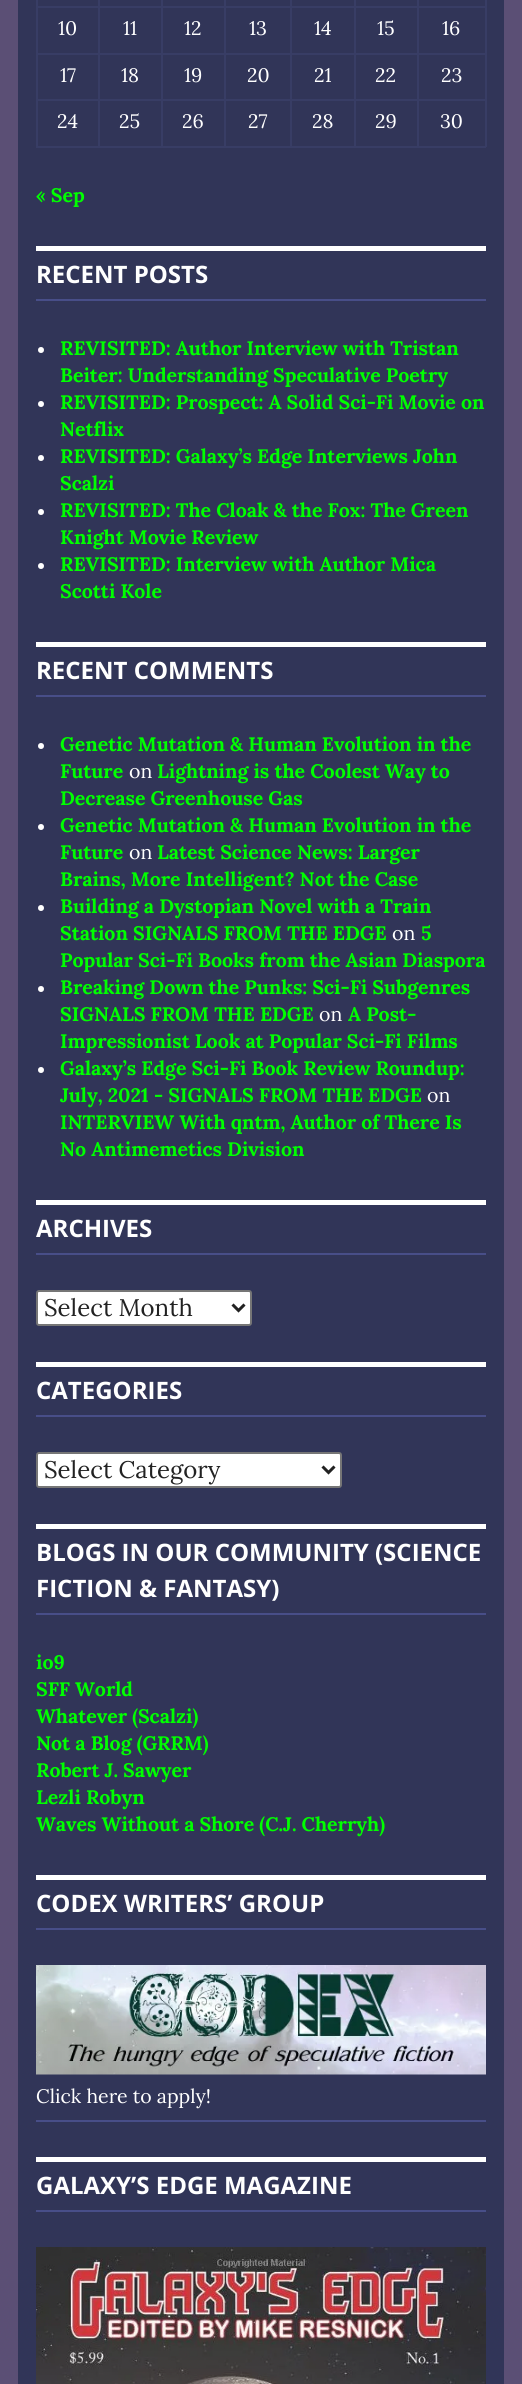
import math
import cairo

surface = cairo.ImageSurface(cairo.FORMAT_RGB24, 522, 2384)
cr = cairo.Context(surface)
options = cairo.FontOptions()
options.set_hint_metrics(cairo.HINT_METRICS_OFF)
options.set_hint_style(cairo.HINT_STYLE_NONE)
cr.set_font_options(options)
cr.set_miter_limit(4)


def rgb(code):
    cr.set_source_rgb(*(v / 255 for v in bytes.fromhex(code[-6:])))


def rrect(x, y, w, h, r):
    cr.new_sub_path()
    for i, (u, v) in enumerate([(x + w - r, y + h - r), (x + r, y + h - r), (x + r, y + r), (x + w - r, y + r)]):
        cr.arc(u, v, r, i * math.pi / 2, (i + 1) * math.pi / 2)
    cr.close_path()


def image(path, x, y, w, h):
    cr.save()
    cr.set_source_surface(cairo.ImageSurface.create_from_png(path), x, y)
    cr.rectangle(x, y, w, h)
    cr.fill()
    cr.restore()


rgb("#5b4f75")
cr.paint()
for x, y, w, h, color in [
    (18, 0, 486, 2384, "#313558"),
    (485, 0, 2, 147, "#383d65"),
    (36, 146, 450, 2, "#383d65"),
    (36, 0, 2, 147, "#383d65"),
    (417, 99, 2, 48, "#383d65"),
    (417, 99, 69, 2, "#383d65"),
    (417, 53, 2, 48, "#383d65"),
    (417, 53, 69, 2, "#383d65"),
    (417, 6, 2, 48, "#383d65"),
    (417, 6, 69, 2, "#383d65"),
    (417, 0, 2, 8, "#383d65"),
    (354, 99, 2, 48, "#383d65"),
    (354, 99, 65, 2, "#383d65"),
    (354, 53, 2, 48, "#383d65"),
    (354, 53, 65, 2, "#383d65"),
    (354, 6, 2, 48, "#383d65"),
    (354, 6, 65, 2, "#383d65"),
    (354, 0, 2, 8, "#383d65"),
    (290, 99, 2, 48, "#383d65"),
    (290, 99, 66, 2, "#383d65"),
    (290, 53, 2, 48, "#383d65"),
    (290, 53, 66, 2, "#383d65"),
    (290, 6, 2, 48, "#383d65"),
    (290, 6, 66, 2, "#383d65"),
    (290, 0, 2, 8, "#383d65"),
    (224, 99, 2, 48, "#383d65"),
    (224, 99, 67, 2, "#383d65"),
    (224, 53, 2, 48, "#383d65"),
    (224, 53, 67, 2, "#383d65"),
    (224, 6, 2, 48, "#383d65"),
    (224, 6, 67, 2, "#383d65"),
    (224, 0, 2, 8, "#383d65"),
    (161, 99, 2, 48, "#383d65"),
    (161, 99, 64, 2, "#383d65"),
    (161, 53, 2, 48, "#383d65"),
    (161, 53, 64, 2, "#383d65"),
    (161, 6, 2, 48, "#383d65"),
    (161, 6, 64, 2, "#383d65"),
    (161, 0, 2, 8, "#383d65"),
    (98, 99, 2, 48, "#383d65"),
    (98, 99, 64, 2, "#383d65"),
    (98, 53, 2, 48, "#383d65"),
    (98, 53, 64, 2, "#383d65"),
    (98, 6, 2, 48, "#383d65"),
    (98, 6, 64, 2, "#383d65"),
    (98, 0, 2, 8, "#383d65"),
    (36, 6, 63, 2, "#383d65"),
    (36, 53, 63, 2, "#383d65"),
    (36, 99, 63, 2, "#383d65"),
    (36, 246, 450, 5, "#ffffff"),
    (36, 299, 450, 2, "#484e88"),
]:
    rgb(color)
    cr.rectangle(x, y, w, h)
    cr.fill()
rgb("#ffffff")
cr.arc(41, 350, 3, 0, 2 * math.pi)
cr.fill()
cr.arc(41, 404, 3, 0, 2 * math.pi)
cr.fill()
cr.arc(41, 458, 3, 0, 2 * math.pi)
cr.fill()
cr.arc(41, 512, 3, 0, 2 * math.pi)
cr.fill()
cr.arc(41, 566, 3, 0, 2 * math.pi)
cr.fill()
cr.rectangle(36, 642, 450, 5)
cr.fill()
rgb("#484e88")
cr.rectangle(36, 695, 450, 2)
cr.fill()
rgb("#ffffff")
cr.arc(41, 746, 3, 0, 2 * math.pi)
cr.fill()
cr.arc(41, 827, 3, 0, 2 * math.pi)
cr.fill()
cr.arc(41, 908, 3, 0, 2 * math.pi)
cr.fill()
cr.arc(41, 989, 3, 0, 2 * math.pi)
cr.fill()
cr.arc(41, 1070, 3, 0, 2 * math.pi)
cr.fill()
cr.rectangle(36, 1200, 450, 5)
cr.fill()
rgb("#484e88")
cr.rectangle(36, 1253, 450, 2)
cr.fill()
rgb("#ffffff")
rrect(37, 1291, 214, 34, 2)
cr.fill_preserve()
rgb("#767676")
cr.stroke()
cr.new_path()
cr.move_to(232.5, 1304.5)
cr.line_to(238.5, 1310.5)
cr.line_to(244.5, 1304.5)
rgb("#222222")
cr.set_line_width(3)
cr.stroke()
rgb("#ffffff")
cr.rectangle(36, 1362, 450, 5)
cr.fill()
rgb("#484e88")
cr.rectangle(36, 1415, 450, 2)
cr.fill()
rgb("#ffffff")
rrect(37, 1453, 304, 34, 2)
cr.fill_preserve()
rgb("#767676")
cr.set_line_width(2)
cr.stroke()
cr.new_path()
cr.move_to(322.5, 1466.5)
cr.line_to(328.5, 1472.5)
cr.line_to(334.5, 1466.5)
rgb("#222222")
cr.set_line_width(3)
cr.stroke()
for x, y, w, h, color in [
    (36, 1524, 450, 5, "#ffffff"),
    (36, 1613, 450, 2, "#484e88"),
    (36, 1875, 450, 5, "#ffffff"),
    (36, 1928, 450, 2, "#484e88"),
    (36, 2120, 450, 2, "#484e88"),
]:
    rgb(color)
    cr.rectangle(x, y, w, h)
    cr.fill()
image("img/1.png", 36, 1965, 450, 110)
rgb("#ffffff")
cr.rectangle(36, 2157, 450, 5)
cr.fill()
rgb("#484e88")
cr.rectangle(36, 2210, 450, 2)
cr.fill()
image("img/2.png", 36, 2247, 450, 137)
cr.select_font_face("Lora")
cr.set_font_size(19.5)
rgb("#ffffff")
for x, y, s in [
    (58, 35, "10"),
    (123, 35, "11"),
    (184, 35, "12"),
    (249, 35, "13"),
    (314, 35, "14"),
    (377, 35, "15"),
    (442, 35, "16"),
    (60, 82, "17"),
    (121, 82, "18"),
    (184, 82, "19"),
    (247, 82, "20"),
    (314, 82, "21"),
    (375, 82, "22"),
    (441, 82, "23"),
    (57, 128, "24"),
    (119, 128, "25"),
    (182, 128, "26"),
    (248, 128, "27"),
    (312, 128, "28"),
    (375, 128, "29"),
    (440, 128, "30"),
]:
    cr.move_to(x, y)
    cr.show_text(s)
cr.select_font_face("Lora", cairo.FONT_SLANT_NORMAL, cairo.FONT_WEIGHT_BOLD)
rgb("#00ff00")
cr.move_to(36, 202)
cr.show_text("« Sep")
cr.select_font_face("Open Sans", cairo.FONT_SLANT_NORMAL, cairo.FONT_WEIGHT_BOLD)
cr.set_font_size(24)
rgb("#ffffff")
cr.move_to(36, 283)
cr.show_text("RECENT POSTS")
cr.select_font_face("Lora", cairo.FONT_SLANT_NORMAL, cairo.FONT_WEIGHT_BOLD)
cr.set_font_size(19.5)
rgb("#00ff00")
for x, y, s in [
    (60, 355, "REVISITED: Author Interview with Tristan"),
    (60, 382, "Beiter: Understanding Speculative Poetry"),
    (60, 409, "REVISITED: Prospect: A Solid Sci-Fi Movie on"),
    (60, 436, "Netflix"),
    (60, 463, "REVISITED: Galaxy’s Edge Interviews John"),
    (60, 490, "Scalzi"),
    (60, 517, "REVISITED: The Cloak & the Fox: The Green"),
    (60, 544, "Knight Movie Review"),
    (60, 571, "REVISITED: Interview with Author Mica"),
    (60, 598, "Scotti Kole"),
]:
    cr.move_to(x, y)
    cr.show_text(s)
cr.select_font_face("Open Sans", cairo.FONT_SLANT_NORMAL, cairo.FONT_WEIGHT_BOLD)
cr.set_font_size(24)
rgb("#ffffff")
cr.move_to(36, 679)
cr.show_text("RECENT COMMENTS")
cr.select_font_face("Lora", cairo.FONT_SLANT_NORMAL, cairo.FONT_WEIGHT_BOLD)
cr.set_font_size(19.5)
rgb("#00ff00")
cr.move_to(60, 751)
cr.show_text("Genetic Mutation & Human Evolution in the")
cr.move_to(60, 778)
cr.show_text("Future")
cr.select_font_face("Lora")
rgb("#ffffff")
cr.move_to(129, 778)
cr.show_text("on")
cr.select_font_face("Lora", cairo.FONT_SLANT_NORMAL, cairo.FONT_WEIGHT_BOLD)
rgb("#00ff00")
for x, y, s in [
    (157, 778, "Lightning is the Coolest Way to"),
    (60, 805, "Decrease Greenhouse Gas"),
    (60, 832, "Genetic Mutation & Human Evolution in the"),
    (60, 859, "Future"),
]:
    cr.move_to(x, y)
    cr.show_text(s)
cr.select_font_face("Lora")
rgb("#ffffff")
cr.move_to(129, 859)
cr.show_text("on")
cr.select_font_face("Lora", cairo.FONT_SLANT_NORMAL, cairo.FONT_WEIGHT_BOLD)
rgb("#00ff00")
for x, y, s in [
    (157, 859, "Latest Science News: Larger"),
    (60, 886, "Brains, More Intelligent? Not the Case"),
    (60, 913, "Building a Dystopian Novel with a Train"),
    (60, 940, "Station SIGNALS FROM THE EDGE"),
]:
    cr.move_to(x, y)
    cr.show_text(s)
cr.select_font_face("Lora")
rgb("#ffffff")
cr.move_to(392, 940)
cr.show_text("on")
cr.select_font_face("Lora", cairo.FONT_SLANT_NORMAL, cairo.FONT_WEIGHT_BOLD)
rgb("#00ff00")
for x, y, s in [
    (421, 940, "5"),
    (60, 967, "Popular Sci-Fi Books from the Asian Diaspora"),
    (60, 994, "Breaking Down the Punks: Sci-Fi Subgenres"),
    (60, 1021, "SIGNALS FROM THE EDGE"),
]:
    cr.move_to(x, y)
    cr.show_text(s)
cr.select_font_face("Lora")
rgb("#ffffff")
cr.move_to(319, 1021)
cr.show_text("on")
cr.select_font_face("Lora", cairo.FONT_SLANT_NORMAL, cairo.FONT_WEIGHT_BOLD)
rgb("#00ff00")
for x, y, s in [
    (348, 1021, "A Post-"),
    (60, 1048, "Impressionist Look at Popular Sci-Fi Films"),
    (60, 1075, "Galaxy’s Edge Sci-Fi Book Review Roundup:"),
    (60, 1102, "July, 2021 - SIGNALS FROM THE EDGE"),
]:
    cr.move_to(x, y)
    cr.show_text(s)
cr.select_font_face("Lora")
rgb("#ffffff")
cr.move_to(427, 1102)
cr.show_text("on")
cr.select_font_face("Lora", cairo.FONT_SLANT_NORMAL, cairo.FONT_WEIGHT_BOLD)
rgb("#00ff00")
cr.move_to(60, 1129)
cr.show_text("INTERVIEW With qntm, Author of There Is")
cr.move_to(60, 1156)
cr.show_text("No Antimemetics Division")
cr.select_font_face("Open Sans", cairo.FONT_SLANT_NORMAL, cairo.FONT_WEIGHT_BOLD)
cr.set_font_size(24)
rgb("#ffffff")
cr.move_to(36, 1237)
cr.show_text("ARCHIVES")
cr.select_font_face("Lora")
rgb("#222222")
cr.move_to(44, 1316)
cr.show_text("Select Month")
cr.select_font_face("Open Sans", cairo.FONT_SLANT_NORMAL, cairo.FONT_WEIGHT_BOLD)
rgb("#ffffff")
cr.move_to(36, 1399)
cr.show_text("CATEGORIES")
cr.select_font_face("Lora")
rgb("#222222")
cr.move_to(44, 1478)
cr.show_text("Select Category")
cr.select_font_face("Open Sans", cairo.FONT_SLANT_NORMAL, cairo.FONT_WEIGHT_BOLD)
rgb("#ffffff")
cr.move_to(36, 1561)
cr.show_text("BLOGS IN OUR COMMUNITY (SCIENCE")
cr.move_to(36, 1597)
cr.show_text("FICTION & FANTASY)")
cr.select_font_face("Lora", cairo.FONT_SLANT_NORMAL, cairo.FONT_WEIGHT_BOLD)
cr.set_font_size(19.5)
rgb("#00ff00")
for x, y, s in [
    (36, 1669, "io9"),
    (36, 1696, "SFF World"),
    (36, 1723, "Whatever (Scalzi)"),
    (36, 1750, "Not a Blog (GRRM)"),
    (36, 1777, "Robert J. Sawyer"),
    (36, 1804, "Lezli Robyn"),
    (36, 1831, "Waves Without a Shore (C.J. Cherryh)"),
]:
    cr.move_to(x, y)
    cr.show_text(s)
cr.select_font_face("Open Sans", cairo.FONT_SLANT_NORMAL, cairo.FONT_WEIGHT_BOLD)
cr.set_font_size(24)
rgb("#ffffff")
cr.move_to(36, 1912)
cr.show_text("CODEX WRITERS’ GROUP")
cr.select_font_face("Lora")
cr.set_font_size(19.5)
cr.move_to(36, 2103)
cr.show_text("Click here to apply!")
cr.select_font_face("Open Sans", cairo.FONT_SLANT_NORMAL, cairo.FONT_WEIGHT_BOLD)
cr.set_font_size(24)
cr.move_to(36, 2194)
cr.show_text("GALAXY’S EDGE MAGAZINE")
surface.write_to_png("page.png")
